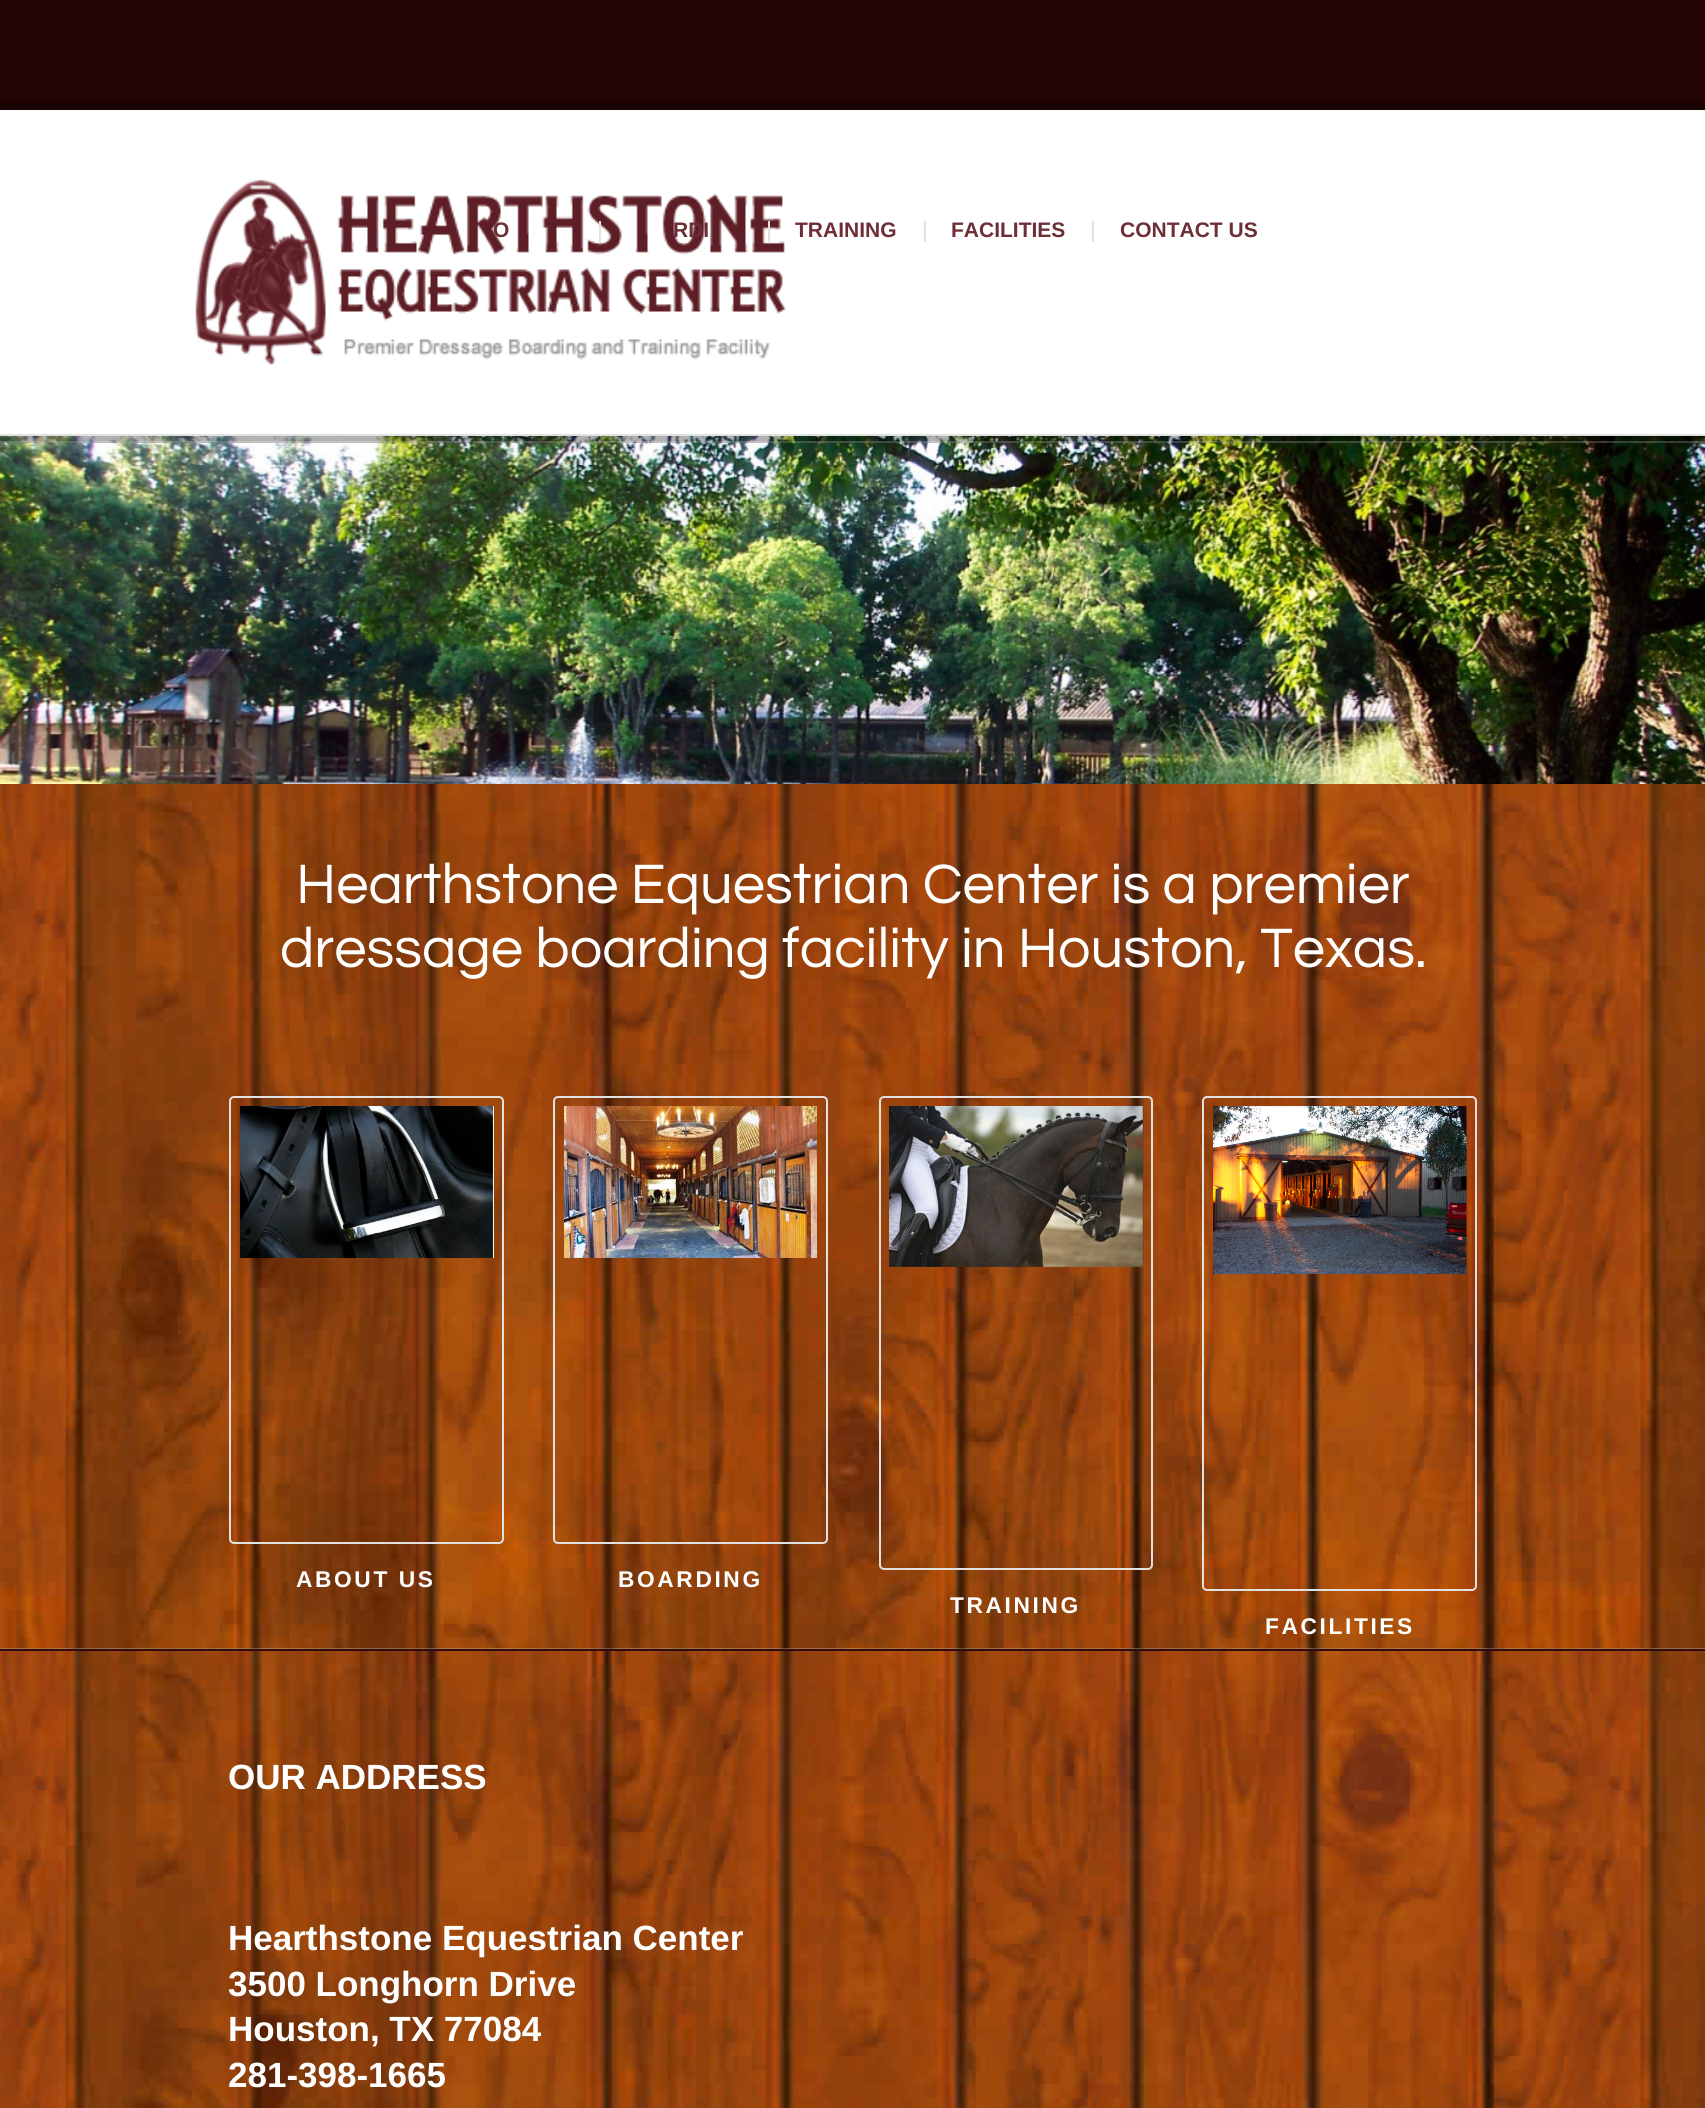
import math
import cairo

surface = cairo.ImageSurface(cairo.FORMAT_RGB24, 1705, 2108)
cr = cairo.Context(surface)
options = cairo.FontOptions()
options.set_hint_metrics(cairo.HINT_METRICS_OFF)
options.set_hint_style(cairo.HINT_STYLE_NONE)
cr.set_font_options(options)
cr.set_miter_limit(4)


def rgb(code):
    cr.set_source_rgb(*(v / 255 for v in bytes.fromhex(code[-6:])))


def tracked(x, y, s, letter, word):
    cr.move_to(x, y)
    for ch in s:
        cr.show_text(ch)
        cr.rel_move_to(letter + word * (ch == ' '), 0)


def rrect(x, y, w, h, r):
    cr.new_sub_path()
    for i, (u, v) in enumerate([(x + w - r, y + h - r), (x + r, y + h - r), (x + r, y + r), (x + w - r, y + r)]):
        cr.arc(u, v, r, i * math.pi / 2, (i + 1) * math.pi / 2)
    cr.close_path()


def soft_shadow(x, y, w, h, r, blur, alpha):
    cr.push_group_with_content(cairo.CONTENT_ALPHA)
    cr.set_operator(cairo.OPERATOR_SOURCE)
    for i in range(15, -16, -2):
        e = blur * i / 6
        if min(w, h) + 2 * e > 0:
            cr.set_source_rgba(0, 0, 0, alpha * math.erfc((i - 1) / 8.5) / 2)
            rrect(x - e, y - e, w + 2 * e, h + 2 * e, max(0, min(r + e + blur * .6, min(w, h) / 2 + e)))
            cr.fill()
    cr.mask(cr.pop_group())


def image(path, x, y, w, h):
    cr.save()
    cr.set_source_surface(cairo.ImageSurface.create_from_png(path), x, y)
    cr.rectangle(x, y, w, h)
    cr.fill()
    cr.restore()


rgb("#ffffff")
cr.paint()
image("img/1.png", 0, 1648, 1705, 1)
rgb("#240404")
cr.rectangle(0, 0, 1705, 110)
cr.fill()
image("img/3.png", 0, 436, 1705, 348)
cr.set_source_rgba(0, 0, 0, 0.3)
cr.rectangle(0, 436, 1705, 7)
cr.fill()
rgb("#000000")
soft_shadow(0, 103, 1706, 326, 0, 2.5, 0.3)
rgb("#ffffff")
cr.rectangle(0, 110, 1705, 324)
cr.fill()
rgb("#e1e1e1")
cr.rectangle(0, 434, 1705, 2)
cr.fill()
image("img/2.png", 195, 179, 592, 186)
cr.rectangle(599, 221, 2, 21)
cr.rectangle(768, 221, 2, 21)
cr.rectangle(924, 221, 2, 21)
cr.rectangle(1092, 221, 2, 21)
cr.fill()
cr.set_source_rgba(1, 1, 1, 0.2)
cr.rectangle(0, 441, 1705, 2)
cr.fill()
image("img/4.png", 0, 784, 1705, 865)
rrect(230, 1097, 273, 446, 4)
rgb("#e1e1e1")
cr.stroke()
image("img/5.png", 239, 1106, 255, 152)
rrect(554, 1097, 273, 446, 4)
cr.stroke()
image("img/6.png", 564, 1106, 253, 152)
rrect(880, 1097, 272, 472, 4)
cr.stroke()
image("img/7.png", 889, 1106, 254, 161)
rrect(1203, 1097, 273, 493, 4)
cr.stroke()
image("img/8.png", 1213, 1106, 254, 169)
image("img/9.png", 0, 1648, 1705, 460)
rgb("#300b0b")
cr.rectangle(0, 1649, 1705, 2)
cr.fill()
cr.select_font_face("Liberation Sans", cairo.FONT_SLANT_NORMAL, cairo.FONT_WEIGHT_BOLD)
cr.set_font_size(21)
rgb("#6d2e36")
for x, y, s in [
    (493, 237, "O"),
    (673, 237, "RDI"),
    (795, 237, "TRAINING"),
    (951, 237, "FACILITIES"),
    (1120, 237, "CONTACT US"),
]:
    cr.move_to(x, y)
    cr.show_text(s)
cr.select_font_face("Questrial")
cr.set_font_size(57.75)
rgb("#ffffff")
cr.move_to(296, 903)
cr.show_text("Hearthstone Equestrian Center is a premier")
cr.move_to(280, 967)
cr.show_text("dressage boarding facility in Houston, Texas.")
cr.select_font_face("Liberation Sans", cairo.FONT_SLANT_NORMAL, cairo.FONT_WEIGHT_BOLD)
cr.set_font_size(22.75)
for x, y, s in [
    (296, 1587, "ABOUT US"),
    (618, 1587, "BOARDING"),
    (950, 1613, "TRAINING"),
    (1265, 1634, "FACILITIES"),
]:
    tracked(x, y, s, 2.6, 0)
cr.set_font_size(35)
for x, y, s in [
    (228, 1789, "OUR ADDRESS"),
    (228, 1950, "Hearthstone Equestrian Center"),
    (228, 1996, "3500 Longhorn Drive"),
    (228, 2041, "Houston, TX 77084"),
    (228, 2087, "281-398-1665"),
]:
    cr.move_to(x, y)
    cr.show_text(s)
surface.write_to_png("page.png")
